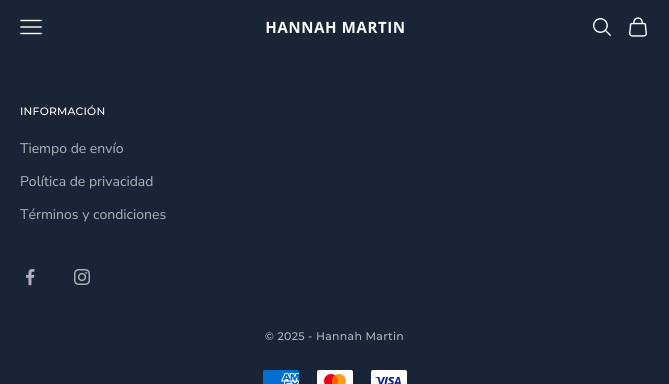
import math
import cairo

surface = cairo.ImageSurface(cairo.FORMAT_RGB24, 669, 384)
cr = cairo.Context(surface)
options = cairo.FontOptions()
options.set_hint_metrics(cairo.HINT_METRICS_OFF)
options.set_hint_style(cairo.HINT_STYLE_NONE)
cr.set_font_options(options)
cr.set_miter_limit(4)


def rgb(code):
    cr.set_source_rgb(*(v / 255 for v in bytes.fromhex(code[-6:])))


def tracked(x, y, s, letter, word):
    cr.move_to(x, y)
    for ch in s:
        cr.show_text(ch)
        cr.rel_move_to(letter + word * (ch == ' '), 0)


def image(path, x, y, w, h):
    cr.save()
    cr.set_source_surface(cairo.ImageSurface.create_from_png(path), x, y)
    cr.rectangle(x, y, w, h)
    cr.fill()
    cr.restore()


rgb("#192537")
cr.paint()
cr.new_path()
cr.move_to(21, 33.5)
cr.line_to(41, 33.5)
cr.move_to(21, 27)
cr.line_to(41, 27)
cr.move_to(21, 20.5)
cr.line_to(41, 20.5)
rgb("#ffffff")
cr.set_line_width(1.4)
cr.set_line_cap(cairo.LINE_CAP_SQUARE)
cr.stroke()
image("img/1.png", 266, 21, 138, 12)
image("img/2.png", 593, 18, 18, 18)
image("img/3.png", 629, 17, 18, 20)
image("img/4.png", 26, 269, 9, 17)
image("img/5.png", 74, 269, 16, 16)
image("img/6.png", 263, 370, 36, 14)
image("img/7.png", 317, 370, 36, 14)
image("img/8.png", 371, 370, 36, 14)
cr.select_font_face("Montserrat Medium")
cr.set_font_size(10.75)
tracked(20, 115, "INFORMACIÓN", 0.25, 0)
cr.select_font_face("Nunito Sans")
cr.set_font_size(14)
rgb("#afb3b9")
for x, y, s in [
    (20, 153, "Tiempo de envío"),
    (20, 186, "Política de privacidad"),
    (20, 219, "Términos y condiciones"),
]:
    cr.move_to(x, y)
    cr.show_text(s)
cr.select_font_face("Montserrat Medium")
cr.set_font_size(11)
tracked(265, 340, "© 2025 - Hannah Martin", 0.3, 0)
surface.write_to_png("page.png")
